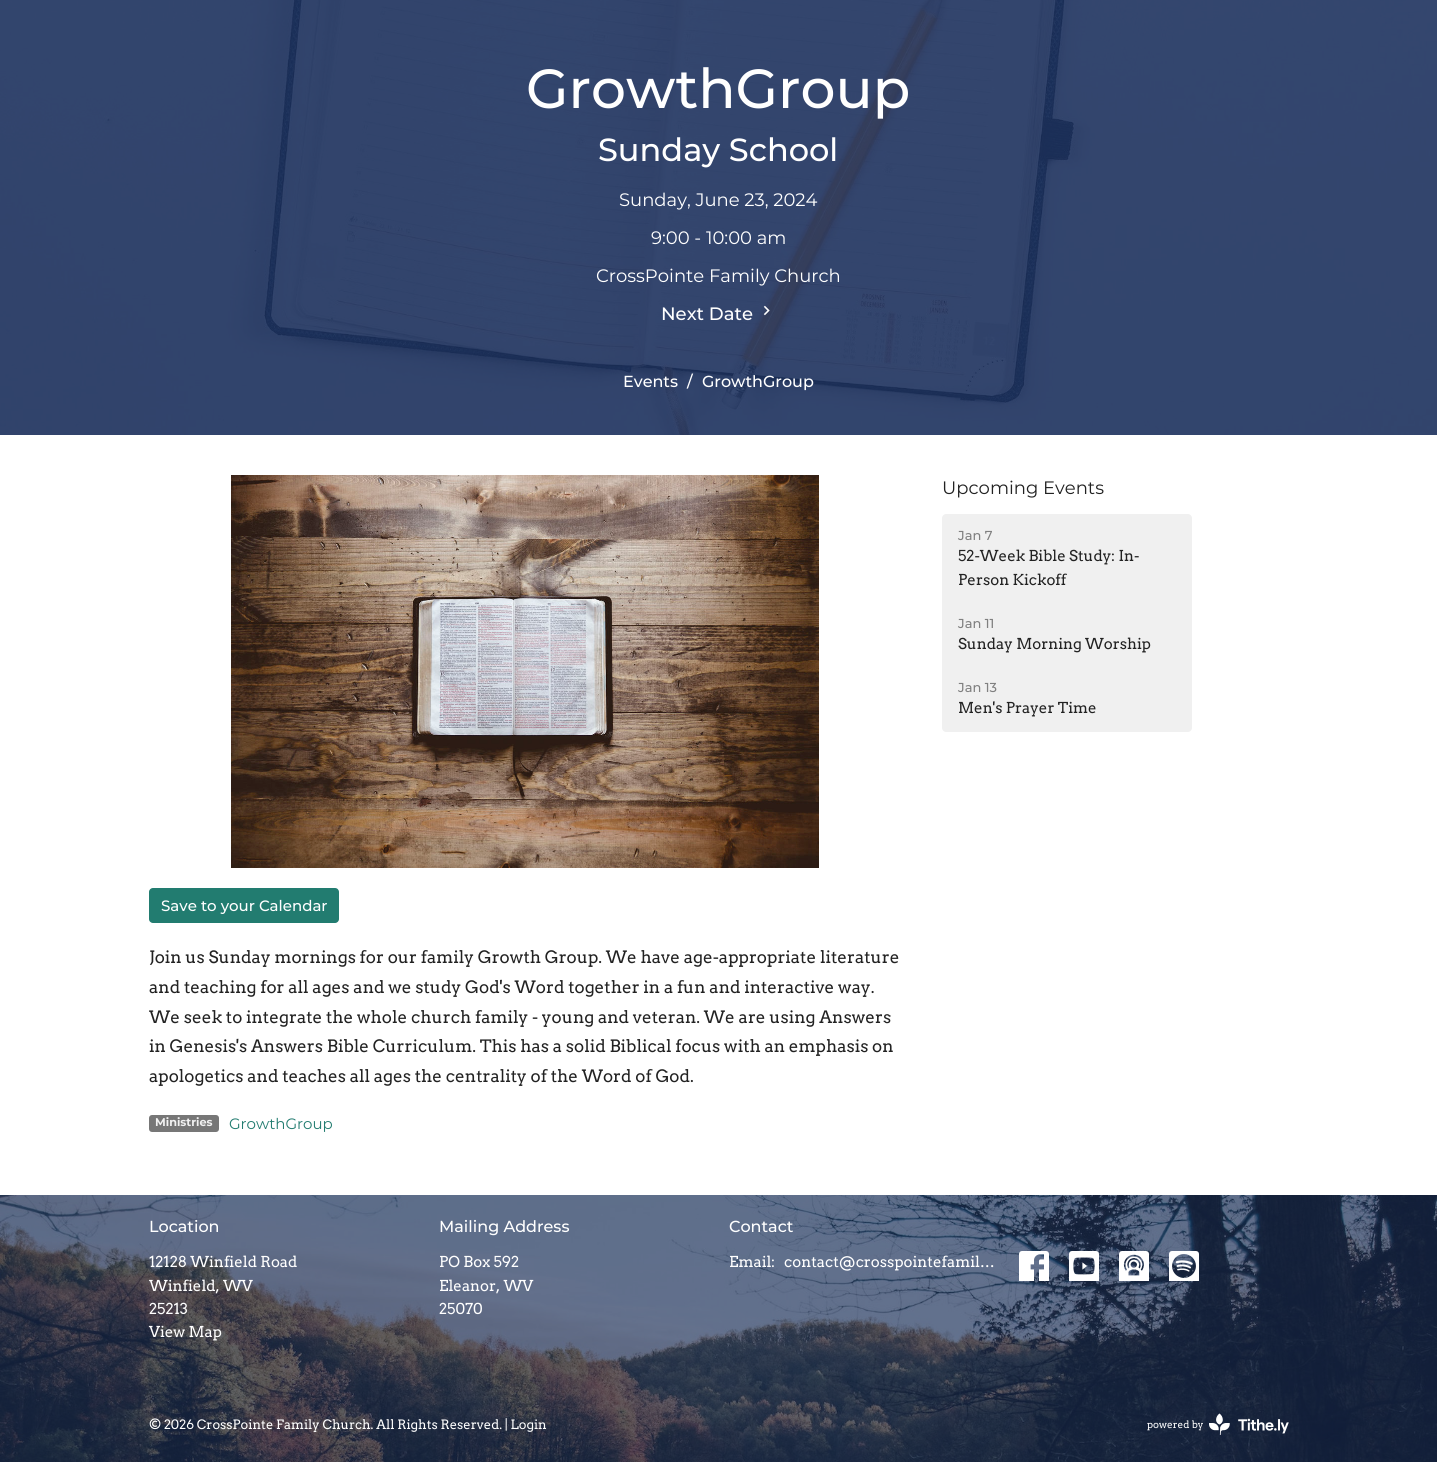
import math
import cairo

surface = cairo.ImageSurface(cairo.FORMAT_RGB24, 1437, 1462)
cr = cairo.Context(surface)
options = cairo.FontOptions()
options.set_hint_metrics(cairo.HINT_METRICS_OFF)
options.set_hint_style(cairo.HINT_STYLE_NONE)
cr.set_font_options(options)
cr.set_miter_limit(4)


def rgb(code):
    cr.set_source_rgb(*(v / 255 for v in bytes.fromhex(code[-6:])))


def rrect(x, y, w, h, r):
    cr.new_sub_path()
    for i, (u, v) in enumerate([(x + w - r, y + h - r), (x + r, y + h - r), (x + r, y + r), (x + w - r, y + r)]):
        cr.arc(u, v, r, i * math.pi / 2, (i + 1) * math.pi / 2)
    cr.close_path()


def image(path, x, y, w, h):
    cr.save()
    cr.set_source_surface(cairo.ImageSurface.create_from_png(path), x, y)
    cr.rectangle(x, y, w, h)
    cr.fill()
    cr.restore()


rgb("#ffffff")
cr.paint()
image("img/1.png", 0, 0, 1437, 435)
image("img/2.png", 763, 305, 7, 11)
rgb("#f0f0f0")
cr.new_path()
cr.move_to(946, 514)
cr.line_to(1188, 514)
cr.curve_to(1190, 514, 1192, 516, 1192, 518)
cr.line_to(1192, 603)
cr.line_to(942, 603)
cr.line_to(942, 518)
cr.curve_to(942, 516, 944, 514, 946, 514)
cr.close_path()
cr.fill()
cr.rectangle(942, 603, 250, 63)
cr.fill()
cr.new_path()
cr.move_to(942, 666)
cr.line_to(1192, 666)
cr.line_to(1192, 728)
cr.curve_to(1192, 730, 1190, 732, 1188, 732)
cr.line_to(946, 732)
cr.curve_to(944, 732, 942, 730, 942, 728)
cr.close_path()
cr.fill()
image("img/3.png", 231, 475, 588, 393)
rgb("#227c70")
rrect(149, 888, 190, 35, 4)
cr.fill()
rgb("#777777")
rrect(149, 1115, 70, 17, 3)
cr.fill()
image("img/4.png", 0, 1195, 1437, 267)
image("img/5.png", 1019, 1251, 30, 30)
image("img/6.png", 1069, 1251, 30, 30)
image("img/7.png", 1119, 1251, 30, 30)
image("img/8.png", 1169, 1251, 30, 30)
image("img/9.png", 1209, 1413, 80, 22)
cr.select_font_face("Montserrat Medium")
cr.set_font_size(55)
rgb("#ffffff")
cr.move_to(526, 108)
cr.show_text("GrowthGroup")
cr.set_font_size(32)
cr.move_to(598, 161)
cr.show_text("Sunday School")
cr.select_font_face("Montserrat")
cr.set_font_size(18)
for x, y, s in [
    (619, 206, "Sunday, June 23, 2024"),
    (651, 244, "9:00 - 10:00 am"),
    (596, 282, "CrossPointe Family Church"),
]:
    cr.move_to(x, y)
    cr.show_text(s)
cr.select_font_face("Montserrat Medium")
cr.move_to(661, 320)
cr.show_text("Next Date")
cr.set_font_size(16)
for x, y, s in [
    (623, 387, "Events"),
    (687, 387, "/"),
    (702, 387, "GrowthGroup"),
]:
    cr.move_to(x, y)
    cr.show_text(s)
cr.select_font_face("Montserrat")
cr.set_font_size(18)
rgb("#222222")
cr.move_to(942, 494)
cr.show_text("Upcoming Events")
cr.select_font_face("Montserrat Medium")
cr.set_font_size(13)
rgb("#808080")
cr.move_to(958, 540)
cr.show_text("Jan 7")
cr.select_font_face("Arvo")
cr.set_font_size(15)
rgb("#222222")
cr.move_to(958, 561)
cr.show_text("52-Week Bible Study: In-")
cr.move_to(958, 585)
cr.show_text("Person Kickoff")
cr.select_font_face("Montserrat Medium")
cr.set_font_size(13)
rgb("#808080")
cr.move_to(958, 628)
cr.show_text("Jan 11")
cr.select_font_face("Arvo")
cr.set_font_size(15)
rgb("#222222")
cr.move_to(958, 649)
cr.show_text("Sunday Morning Worship")
cr.select_font_face("Montserrat Medium")
cr.set_font_size(13)
rgb("#808080")
cr.move_to(958, 692)
cr.show_text("Jan 13")
cr.select_font_face("Arvo")
cr.set_font_size(15)
rgb("#222222")
cr.move_to(958, 713)
cr.show_text("Men's Prayer Time")
cr.select_font_face("Montserrat Medium")
rgb("#ffffff")
cr.move_to(161, 911)
cr.show_text("Save to your Calendar")
cr.select_font_face("Arvo")
cr.set_font_size(17)
rgb("#222222")
for x, y, s in [
    (149, 963, "Join us Sunday mornings for our family Growth Group. We have age-appropriate literature"),
    (149, 993, "and teaching for all ages and we study God's Word together in a fun and interactive way."),
    (149, 1023, "We seek to integrate the whole church family - young and veteran. We are using Answers"),
    (149, 1052, "in Genesis's Answers Bible Curriculum. This has a solid Biblical focus with an emphasis on"),
    (149, 1082, "apologetics and teaches all ages the centrality of the Word of God."),
]:
    cr.move_to(x, y)
    cr.show_text(s)
cr.select_font_face("Montserrat", cairo.FONT_SLANT_NORMAL, cairo.FONT_WEIGHT_BOLD)
cr.set_font_size(11.25)
rgb("#f1f1f1")
cr.move_to(155, 1126)
cr.show_text("Ministries")
cr.select_font_face("Montserrat")
cr.set_font_size(15)
rgb("#227c70")
cr.move_to(229, 1129)
cr.show_text("GrowthGroup")
cr.select_font_face("Montserrat Medium")
cr.set_font_size(16)
rgb("#ffffff")
cr.move_to(149, 1232)
cr.show_text("Location")
cr.select_font_face("Arvo")
cr.set_font_size(15)
for x, y, s in [
    (149, 1267, "12128 Winfield Road"),
    (149, 1291, "Winfield, WV"),
    (149, 1314, "25213"),
    (149, 1337, "View Map"),
]:
    cr.move_to(x, y)
    cr.show_text(s)
cr.select_font_face("Montserrat Medium")
cr.set_font_size(16)
cr.move_to(439, 1232)
cr.show_text("Mailing Address")
cr.select_font_face("Arvo")
cr.set_font_size(15)
for x, y, s in [
    (439, 1267, "PO Box 592"),
    (439, 1291, "Eleanor, WV"),
    (439, 1314, "25070"),
]:
    cr.move_to(x, y)
    cr.show_text(s)
cr.select_font_face("Montserrat Medium")
cr.set_font_size(16)
cr.move_to(729, 1232)
cr.show_text("Contact")
cr.select_font_face("Arvo")
cr.set_font_size(15)
cr.move_to(729, 1267)
cr.show_text("Email:")
cr.move_to(784, 1267)
cr.show_text("contact@crosspointefamil…")
cr.set_font_size(12.9)
cr.move_to(149, 1429)
cr.show_text("© 2026 CrossPointe Family Church. All Rights Reserved. | Login")
cr.set_font_size(10)
cr.move_to(1147, 1428)
cr.show_text("powered by")
surface.write_to_png("page.png")
